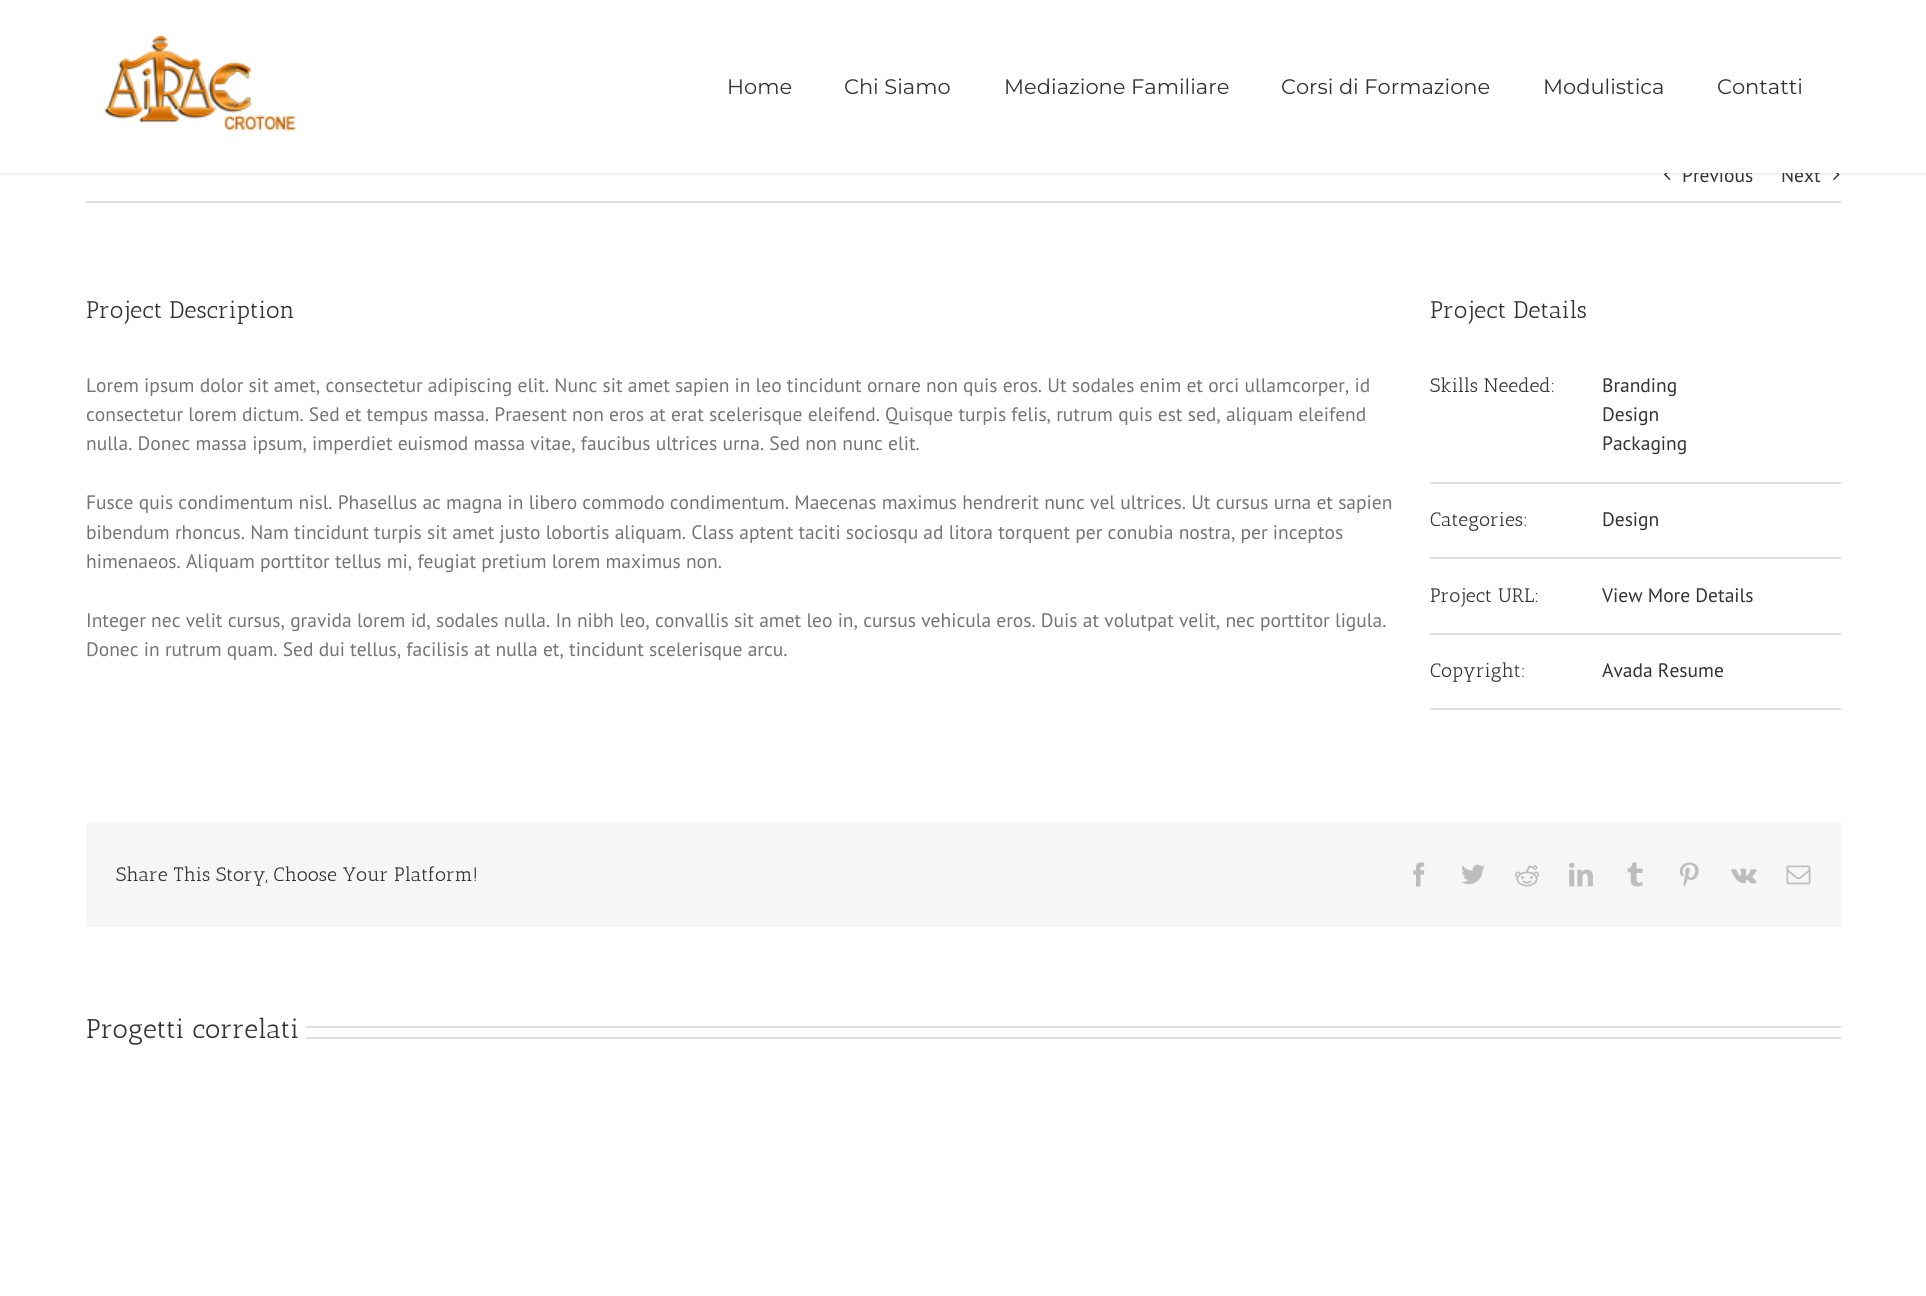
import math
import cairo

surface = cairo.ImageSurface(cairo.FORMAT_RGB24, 1926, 1296)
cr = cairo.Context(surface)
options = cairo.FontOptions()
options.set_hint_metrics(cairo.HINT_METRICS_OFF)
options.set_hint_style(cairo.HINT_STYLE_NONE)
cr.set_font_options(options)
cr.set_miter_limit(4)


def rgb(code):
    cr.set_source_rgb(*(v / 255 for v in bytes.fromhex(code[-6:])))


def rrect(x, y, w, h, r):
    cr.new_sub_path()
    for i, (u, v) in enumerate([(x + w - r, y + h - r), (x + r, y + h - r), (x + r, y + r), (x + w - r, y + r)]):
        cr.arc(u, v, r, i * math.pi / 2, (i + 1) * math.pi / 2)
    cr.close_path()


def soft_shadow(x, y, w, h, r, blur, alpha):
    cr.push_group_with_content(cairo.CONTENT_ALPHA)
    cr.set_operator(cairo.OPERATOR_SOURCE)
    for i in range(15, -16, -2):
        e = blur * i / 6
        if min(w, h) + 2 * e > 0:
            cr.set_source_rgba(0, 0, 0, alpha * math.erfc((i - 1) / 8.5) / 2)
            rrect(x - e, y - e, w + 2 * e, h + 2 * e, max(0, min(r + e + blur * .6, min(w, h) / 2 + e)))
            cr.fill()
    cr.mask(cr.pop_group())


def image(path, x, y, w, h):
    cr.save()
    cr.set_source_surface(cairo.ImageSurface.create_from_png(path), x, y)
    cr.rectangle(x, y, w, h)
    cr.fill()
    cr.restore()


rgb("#ffffff")
cr.paint()
image("img/2.png", 1664, 173, 7, 7)
image("img/3.png", 1833, 173, 7, 7)
rgb("#000000")
soft_shadow(0, 2, 1926, 172, 0, 2, 0.12)
for x, y, w, h, color in [
    (86, 201, 1755, 2, "#e0dede"),
    (1430, 482, 411, 2, "#e0dede"),
    (1430, 557, 411, 2, "#e0dede"),
    (1430, 633, 411, 2, "#e0dede"),
    (1430, 708, 411, 2, "#e0dede"),
    (86, 822, 1755, 105, "#f6f6f6"),
]:
    rgb(color)
    cr.rectangle(x, y, w, h)
    cr.fill()
image("img/4.png", 1413, 862, 12, 25)
image("img/5.png", 1461, 864, 24, 21)
image("img/6.png", 1515, 865, 24, 22)
image("img/7.png", 1569, 862, 24, 25)
image("img/8.png", 1627, 862, 16, 25)
image("img/9.png", 1679, 862, 20, 25)
image("img/10.png", 1731, 868, 26, 16)
image("img/11.png", 1786, 865, 25, 20)
rgb("#e0dede")
cr.rectangle(306, 1026, 1535, 2)
cr.fill()
cr.rectangle(306, 1037, 1535, 2)
cr.fill()
cr.select_font_face("PT Sans")
cr.set_font_size(19.5)
rgb("#333333")
cr.move_to(1682, 182)
cr.show_text("Previous")
cr.move_to(1781, 182)
cr.show_text("Next")
rgb("#ffffff")
cr.rectangle(0, 0, 1926, 173)
cr.fill()
cr.select_font_face("Montserrat Thin")
cr.set_font_size(21)
rgb("#333333")
for x, y, s in [
    (1717, 94, "Contatti"),
    (1543, 94, "Modulistica"),
    (1281, 94, "Corsi di Formazione"),
    (1004, 94, "Mediazione Familiare"),
    (844, 94, "Chi Siamo"),
    (727, 94, "Home"),
]:
    cr.move_to(x, y)
    cr.show_text(s)
image("img/1.png", 104, 35, 192, 96)
cr.select_font_face("Antic Slab")
cr.set_font_size(24)
cr.move_to(86, 318)
cr.show_text("Project Description")
cr.select_font_face("PT Sans")
cr.set_font_size(19.5)
rgb("#747474")
for x, y, s in [
    (86, 392, "Lorem ipsum dolor sit amet, consectetur adipiscing elit. Nunc sit amet sapien in leo tincidunt ornare non quis eros. Ut sodales enim et orci ullamcorper, id"),
    (86, 421, "consectetur lorem dictum. Sed et tempus massa. Praesent non eros at erat scelerisque eleifend. Quisque turpis felis, rutrum quis est sed, aliquam eleifend"),
    (86, 450, "nulla. Donec massa ipsum, imperdiet euismod massa vitae, faucibus ultrices urna. Sed non nunc elit."),
    (86, 509, "Fusce quis condimentum nisl. Phasellus ac magna in libero commodo condimentum. Maecenas maximus hendrerit nunc vel ultrices. Ut cursus urna et sapien"),
    (86, 539, "bibendum rhoncus. Nam tincidunt turpis sit amet justo lobortis aliquam. Class aptent taciti sociosqu ad litora torquent per conubia nostra, per inceptos"),
    (86, 568, "himenaeos. Aliquam porttitor tellus mi, feugiat pretium lorem maximus non."),
    (86, 627, "Integer nec velit cursus, gravida lorem id, sodales nulla. In nibh leo, convallis sit amet leo in, cursus vehicula eros. Duis at volutpat velit, nec porttitor ligula."),
    (86, 656, "Donec in rutrum quam. Sed dui tellus, facilisis at nulla et, tincidunt scelerisque arcu."),
]:
    cr.move_to(x, y)
    cr.show_text(s)
cr.select_font_face("Antic Slab")
cr.set_font_size(24)
rgb("#333333")
cr.move_to(1430, 318)
cr.show_text("Project Details")
cr.set_font_size(19.5)
cr.move_to(1430, 392)
cr.show_text("Skills Needed:")
cr.select_font_face("PT Sans")
for x, y, s in [
    (1602, 392, "Branding"),
    (1602, 421, "Design"),
    (1602, 450, "Packaging"),
]:
    cr.move_to(x, y)
    cr.show_text(s)
cr.select_font_face("Antic Slab")
cr.move_to(1430, 526)
cr.show_text("Categories:")
cr.select_font_face("PT Sans")
cr.move_to(1602, 526)
cr.show_text("Design")
cr.select_font_face("Antic Slab")
cr.move_to(1430, 602)
cr.show_text("Project URL:")
cr.select_font_face("PT Sans")
cr.move_to(1602, 602)
cr.show_text("View More Details")
cr.select_font_face("Antic Slab")
cr.move_to(1430, 677)
cr.show_text("Copyright:")
cr.select_font_face("PT Sans")
cr.move_to(1602, 677)
cr.show_text("Avada Resume")
cr.select_font_face("Antic Slab")
cr.move_to(116, 881)
cr.show_text("Share This Story, Choose Your Platform!")
cr.set_font_size(27)
cr.move_to(86, 1038)
cr.show_text("Progetti correlati")
surface.write_to_png("page.png")
